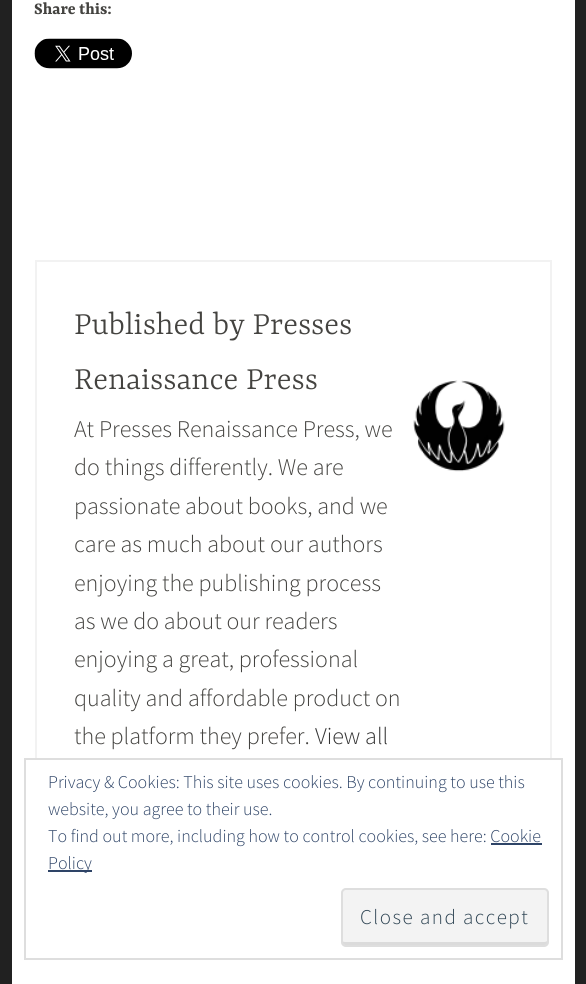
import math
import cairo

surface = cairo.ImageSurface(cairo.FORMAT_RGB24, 586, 984)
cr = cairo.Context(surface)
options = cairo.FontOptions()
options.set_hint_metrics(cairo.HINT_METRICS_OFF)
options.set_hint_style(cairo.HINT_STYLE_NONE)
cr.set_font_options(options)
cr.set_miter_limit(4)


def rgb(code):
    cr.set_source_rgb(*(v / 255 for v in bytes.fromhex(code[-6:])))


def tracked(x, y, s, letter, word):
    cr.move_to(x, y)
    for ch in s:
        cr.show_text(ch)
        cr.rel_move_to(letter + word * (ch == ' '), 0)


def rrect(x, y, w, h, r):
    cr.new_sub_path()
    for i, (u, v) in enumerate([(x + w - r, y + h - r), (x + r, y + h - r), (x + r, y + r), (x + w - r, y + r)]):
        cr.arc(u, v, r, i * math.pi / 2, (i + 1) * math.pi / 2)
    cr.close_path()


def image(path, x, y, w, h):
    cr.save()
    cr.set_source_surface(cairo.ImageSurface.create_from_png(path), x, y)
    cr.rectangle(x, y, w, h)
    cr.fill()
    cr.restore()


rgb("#212121")
cr.paint()
rgb("#ffffff")
cr.rectangle(12, 0, 563, 984)
cr.fill()
image("img/1.png", 34, 38, 98, 31)
cr.rectangle(36, 261, 515, 610)
rgb("#f2f2f2")
cr.stroke()
image("img/2.png", 413, 380, 92, 92)
rgb("#ffffff")
cr.rectangle(35, 760, 517, 112)
cr.fill()
cr.rectangle(25, 759, 537, 200)
rgb("#dedede")
cr.stroke()
rgb("#2e4467")
cr.rectangle(491, 843, 51, 2)
cr.fill()
cr.rectangle(48, 870, 44, 2)
cr.fill()
rgb("#f3f3f3")
rrect(341, 888, 208, 59, 5)
cr.fill()
rgb("#dbdbdb")
cr.new_path()
cr.move_to(342, 939)
cr.line_to(342, 942)
cr.curve_to(342, 944, 343, 945, 345, 945)
cr.line_to(545, 945)
cr.curve_to(547, 945, 548, 944, 548, 942)
cr.line_to(548, 939)
cr.curve_to(548, 941, 546, 942, 544, 942)
cr.line_to(345, 942)
cr.curve_to(343, 942, 342, 941, 342, 939)
cr.close_path()
cr.fill()
rrect(342, 889, 206, 57, 4)
rgb("#dedede")
cr.stroke()
cr.select_font_face("Yrsa", cairo.FONT_SLANT_NORMAL, cairo.FONT_WEIGHT_BOLD)
cr.set_font_size(18)
rgb("#444340")
cr.move_to(34, 14)
cr.show_text("Share this:")
cr.select_font_face("Yrsa Light")
cr.set_font_size(34.5)
cr.move_to(74, 334)
cr.show_text("Published by Presses")
cr.move_to(74, 389)
cr.show_text("Renaissance Press")
cr.select_font_face("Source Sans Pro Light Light")
cr.set_font_size(24)
for x, y, s in [
    (74, 437, "At Presses Renaissance Press, we"),
    (74, 475, "do things differently. We are"),
    (74, 514, "passionate about books, and we"),
    (74, 552, "care as much about our authors"),
    (74, 591, "enjoying the publishing process"),
    (74, 629, "as we do about our readers"),
    (74, 667, "enjoying a great, professional"),
    (74, 706, "quality and affordable product on"),
    (74, 744, "the platform they prefer."),
]:
    cr.move_to(x, y)
    cr.show_text(s)
rgb("#333333")
cr.move_to(315, 744)
cr.show_text("View all")
cr.set_font_size(18)
rgb("#2e4467")
for x, y, s in [
    (48, 788, "Privacy & Cookies: This site uses cookies. By continuing to use this"),
    (48, 815, "website, you agree to their use."),
    (48, 842, "To find out more, including how to control cookies, see here: Cookie"),
    (48, 869, "Policy"),
]:
    cr.move_to(x, y)
    cr.show_text(s)
cr.set_font_size(21)
rgb("#2e4453")
tracked(360, 924, "Close and accept", 1.5, 0)
surface.write_to_png("page.png")
